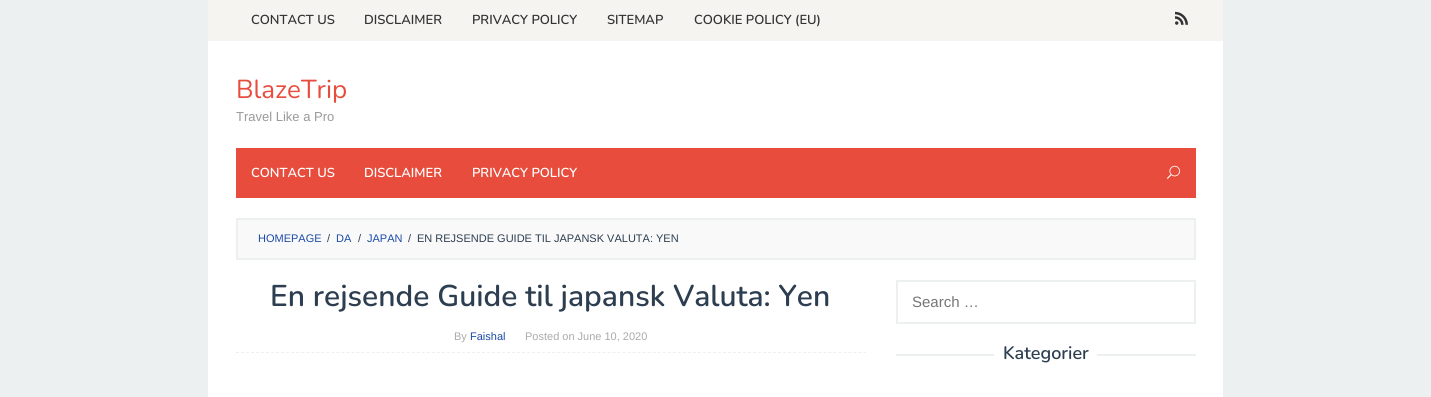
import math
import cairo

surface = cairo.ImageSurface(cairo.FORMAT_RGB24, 1431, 397)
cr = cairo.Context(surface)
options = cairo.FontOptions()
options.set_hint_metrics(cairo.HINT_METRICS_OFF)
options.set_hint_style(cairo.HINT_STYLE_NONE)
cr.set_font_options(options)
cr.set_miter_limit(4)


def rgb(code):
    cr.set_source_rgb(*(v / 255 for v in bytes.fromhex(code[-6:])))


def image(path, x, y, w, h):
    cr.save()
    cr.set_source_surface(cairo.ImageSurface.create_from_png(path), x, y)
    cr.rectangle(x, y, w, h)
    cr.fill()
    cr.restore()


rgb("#ecf0f1")
cr.paint()
rgb("#ffffff")
cr.rectangle(208, 41, 1015, 356)
cr.fill()
rgb("#f6f4f1")
cr.rectangle(208, 0, 1015, 41)
cr.fill()
image("img/1.png", 1175, 11, 13, 14)
rgb("#e74c3c")
cr.rectangle(236, 148, 960, 50)
cr.fill()
image("img/2.png", 1167, 165, 13, 14)
rgb("#f9f9f9")
cr.rectangle(237, 219, 958, 40)
cr.fill_preserve()
rgb("#ecf0f1")
cr.stroke()
cr.new_path()
cr.move_to(236, 352.5)
cr.line_to(866, 352.5)
cr.set_line_width(1)
cr.set_dash([3, 2.02])
cr.stroke()
cr.rectangle(897, 281, 298, 42)
cr.set_line_width(2)
cr.set_dash([])
cr.stroke()
cr.rectangle(896, 354, 98, 2)
cr.fill()
cr.rectangle(1097, 354, 99, 2)
cr.fill()
cr.select_font_face("Nunito SemiBold")
cr.set_font_size(13)
rgb("#333333")
for x, y, s in [
    (251, 24, "CONTACT US"),
    (364, 24, "DISCLAIMER"),
    (472, 24, "PRIVACY POLICY"),
    (607, 24, "SITEMAP"),
    (694, 24, "COOKIE POLICY (EU)"),
]:
    cr.move_to(x, y)
    cr.show_text(s)
cr.select_font_face("Nunito")
cr.set_font_size(26)
rgb("#e74c3c")
cr.move_to(236, 98)
cr.show_text("BlazeTrip")
cr.select_font_face("Liberation Sans")
cr.set_font_size(13)
rgb("#999999")
cr.move_to(236, 121)
cr.show_text("Travel Like a Pro")
cr.select_font_face("Nunito SemiBold")
rgb("#ffffff")
for x, y, s in [
    (251, 177, "CONTACT US"),
    (364, 177, "DISCLAIMER"),
    (472, 177, "PRIVACY POLICY"),
]:
    cr.move_to(x, y)
    cr.show_text(s)
cr.select_font_face("Liberation Sans")
cr.set_font_size(11)
rgb("#1a4aa8")
cr.move_to(258, 242)
cr.show_text("HOMEPAGE")
rgb("#2c3e50")
cr.move_to(327, 242)
cr.show_text("/")
rgb("#1a4aa8")
cr.move_to(336, 242)
cr.show_text("DA")
rgb("#2c3e50")
cr.move_to(358, 242)
cr.show_text("/")
rgb("#1a4aa8")
cr.move_to(367, 242)
cr.show_text("JAPAN")
rgb("#2c3e50")
cr.move_to(408, 242)
cr.show_text("/")
cr.move_to(417, 242)
cr.show_text("EN REJSENDE GUIDE TIL JAPANSK VALUTA: YEN")
cr.select_font_face("Nunito SemiBold")
cr.set_font_size(30)
cr.move_to(270, 306)
cr.show_text("En rejsende Guide til japansk Valuta: Yen")
cr.select_font_face("Liberation Sans")
cr.set_font_size(11)
rgb("#aaaaaa")
cr.move_to(454, 340)
cr.show_text("By")
rgb("#1a4aa8")
cr.move_to(470, 340)
cr.show_text("Faishal")
rgb("#aaaaaa")
cr.move_to(525, 340)
cr.show_text("Posted on June 10, 2020")
cr.set_font_size(15)
rgb("#757575")
cr.move_to(912, 307)
cr.show_text("Search …")
cr.select_font_face("Nunito SemiBold")
cr.set_font_size(18)
rgb("#2c3e50")
cr.move_to(1003, 359)
cr.show_text("Kategorier")
surface.write_to_png("page.png")
